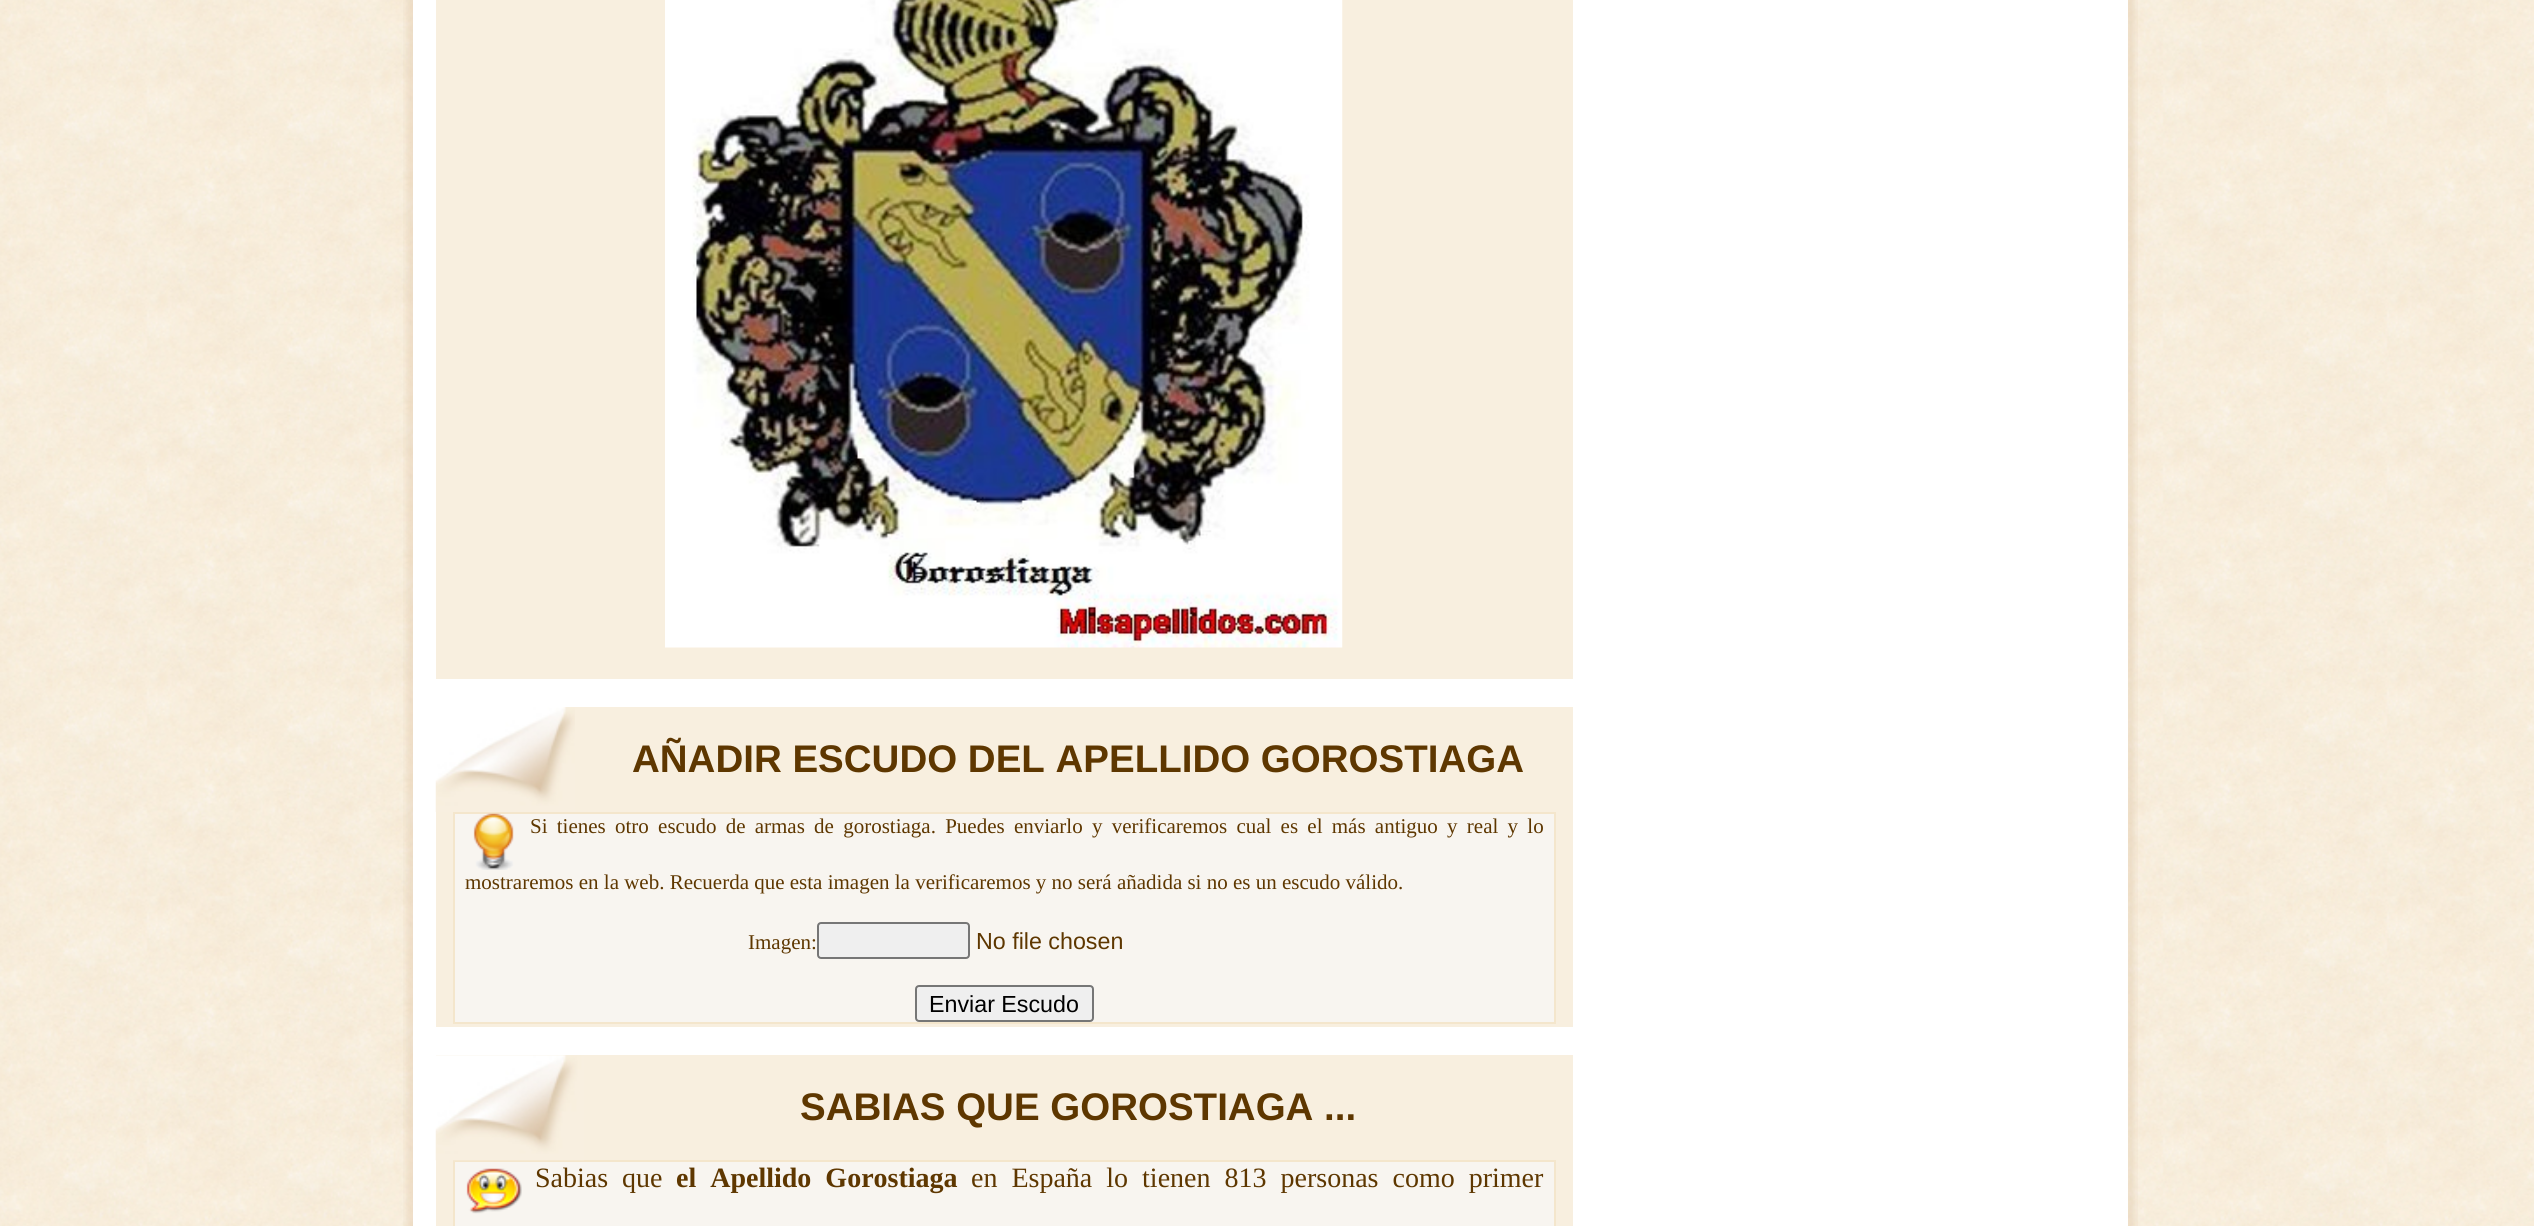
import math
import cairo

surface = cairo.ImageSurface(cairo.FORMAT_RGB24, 2534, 1226)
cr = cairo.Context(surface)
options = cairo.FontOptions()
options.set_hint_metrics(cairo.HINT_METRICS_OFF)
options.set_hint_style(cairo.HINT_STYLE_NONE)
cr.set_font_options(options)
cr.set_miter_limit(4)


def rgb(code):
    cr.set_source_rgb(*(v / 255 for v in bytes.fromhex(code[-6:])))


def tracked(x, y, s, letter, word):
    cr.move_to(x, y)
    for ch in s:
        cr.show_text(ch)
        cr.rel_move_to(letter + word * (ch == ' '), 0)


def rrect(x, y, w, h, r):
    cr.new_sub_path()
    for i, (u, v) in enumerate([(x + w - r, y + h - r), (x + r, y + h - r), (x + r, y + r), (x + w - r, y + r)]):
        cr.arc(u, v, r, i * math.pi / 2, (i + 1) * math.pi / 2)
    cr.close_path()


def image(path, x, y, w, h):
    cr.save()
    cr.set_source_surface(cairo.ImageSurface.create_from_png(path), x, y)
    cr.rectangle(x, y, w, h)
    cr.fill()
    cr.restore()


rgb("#ffffff")
cr.paint()
image("img/1.png", 0, 0, 2534, 1226)
image("img/2.png", 403, 0, 10, 1226)
rgb("#ffffff")
cr.rectangle(413, 0, 1715, 1226)
cr.fill()
rgb("#f8efdf")
cr.rectangle(436, 0, 1137, 679)
cr.fill()
image("img/3.png", 665, 0, 678, 648)
cr.rectangle(436, 707, 1137, 320)
cr.fill()
image("img/4.png", 435, 707, 140, 105)
rgb("#f8f5f0")
cr.rectangle(454, 813, 1101, 210)
cr.fill_preserve()
rgb("#f4e6cc")
cr.stroke()
image("img/5.png", 473, 813, 41, 57)
rgb("#efefef")
rrect(818, 923, 151, 35, 3)
cr.fill_preserve()
rgb("#767676")
cr.stroke()
rgb("#efefef")
rrect(916, 986, 177, 35, 3)
cr.fill_preserve()
rgb("#767676")
cr.stroke()
rgb("#f8efdf")
cr.rectangle(436, 1055, 1137, 171)
cr.fill()
rgb("#f8f5f0")
cr.rectangle(454, 1161, 1101, 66)
cr.fill_preserve()
rgb("#f4e6cc")
cr.stroke()
image("img/6.png", 435, 1055, 149, 106)
image("img/7.png", 466, 1168, 56, 46)
image("img/8.png", 2128, 0, 10, 1226)
cr.select_font_face("Liberation Sans", cairo.FONT_SLANT_NORMAL, cairo.FONT_WEIGHT_BOLD)
cr.set_font_size(38.5)
rgb("#5e3700")
cr.move_to(632, 772)
cr.show_text("AÑADIR ESCUDO DEL APELLIDO GOROSTIAGA")
cr.select_font_face("Liberation Serif")
cr.set_font_size(21)
tracked(530, 833, "Si tienes otro escudo de armas de gorostiaga. Puedes enviarlo y verificaremos cual es el más antiguo y real y lo", 0, 4)
cr.move_to(465, 889)
cr.show_text("mostraremos en la web. Recuerda que esta imagen la verificaremos y no será añadida si no es un escudo válido.")
cr.move_to(748, 949)
cr.show_text("Imagen:")
cr.select_font_face("Liberation Sans")
cr.set_font_size(23.25)
cr.move_to(976, 949)
cr.show_text("No file chosen")
rgb("#000000")
cr.move_to(929, 1012)
cr.show_text("Enviar Escudo")
cr.select_font_face("Liberation Sans", cairo.FONT_SLANT_NORMAL, cairo.FONT_WEIGHT_BOLD)
cr.set_font_size(38.5)
rgb("#5e3700")
cr.move_to(800, 1120)
cr.show_text("SABIAS QUE GOROSTIAGA ...")
cr.select_font_face("Liberation Serif")
cr.set_font_size(28)
tracked(535, 1187, "Sabias que", 0, 7)
cr.select_font_face("Liberation Serif", cairo.FONT_SLANT_NORMAL, cairo.FONT_WEIGHT_BOLD)
tracked(676, 1187, "el Apellido Gorostiaga", 0, 7)
cr.select_font_face("Liberation Serif")
tracked(971, 1187, "en España lo tienen 813 personas como primer", 0, 7)
surface.write_to_png("page.png")
